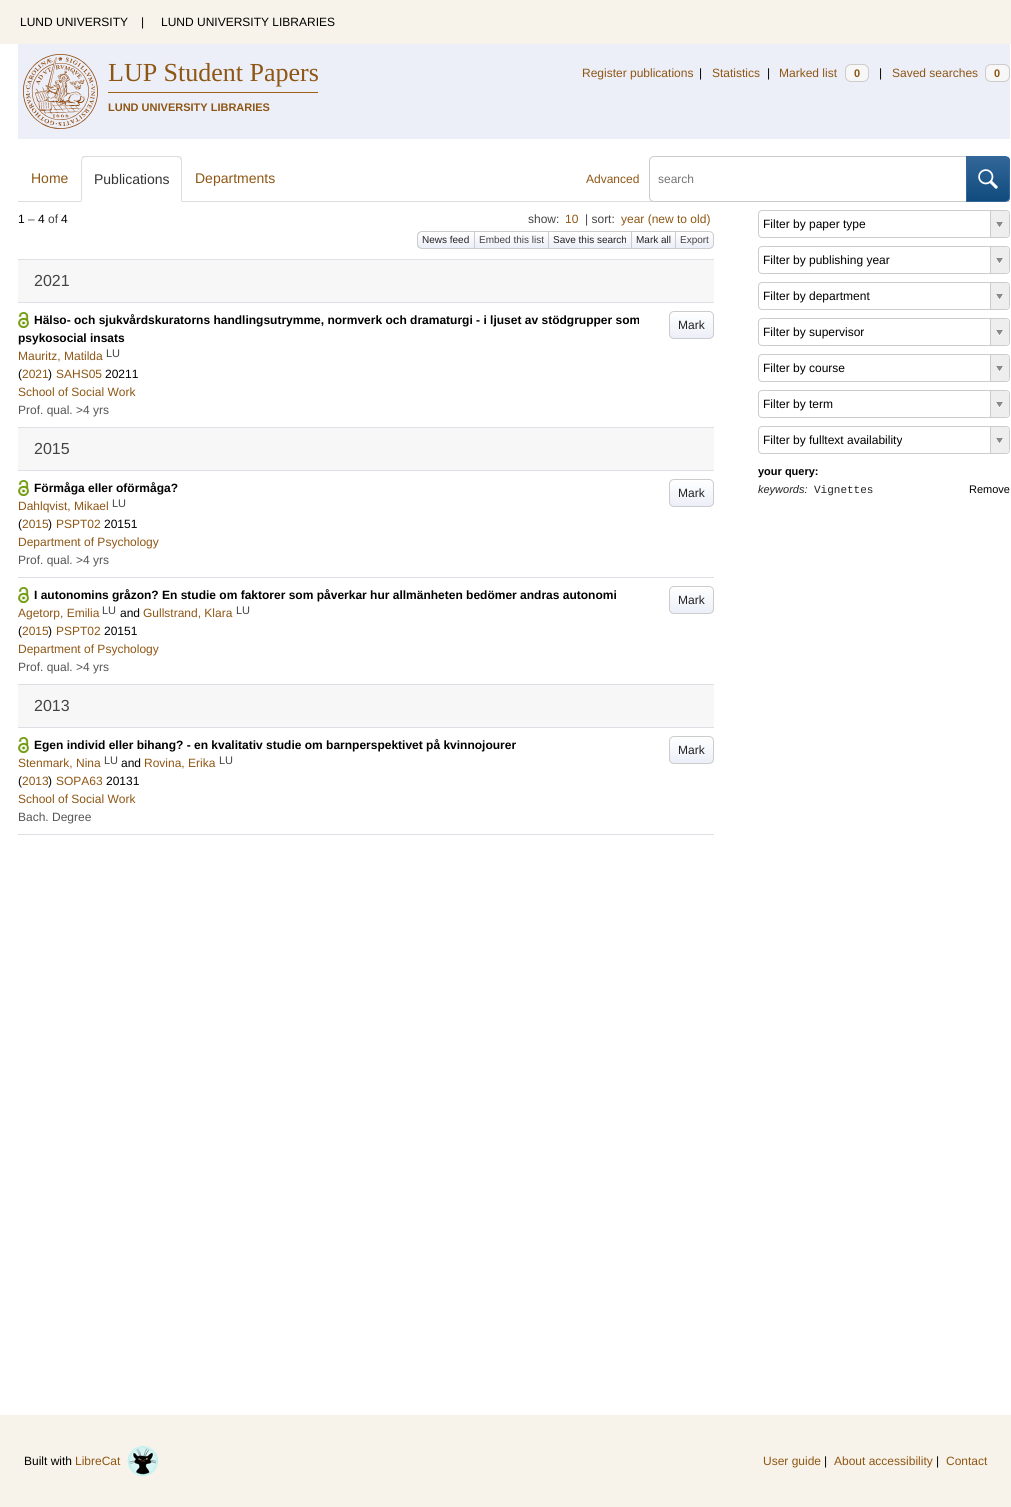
import math
import cairo

surface = cairo.ImageSurface(cairo.FORMAT_RGB24, 1011, 1507)
cr = cairo.Context(surface)
options = cairo.FontOptions()
options.set_hint_metrics(cairo.HINT_METRICS_OFF)
options.set_hint_style(cairo.HINT_STYLE_NONE)
cr.set_font_options(options)
cr.set_miter_limit(4)


def rgb(code):
    cr.set_source_rgb(*(v / 255 for v in bytes.fromhex(code[-6:])))


def rrect(x, y, w, h, r):
    cr.new_sub_path()
    for i, (u, v) in enumerate([(x + w - r, y + h - r), (x + r, y + h - r), (x + r, y + r), (x + w - r, y + r)]):
        cr.arc(u, v, r, i * math.pi / 2, (i + 1) * math.pi / 2)
    cr.close_path()


def image(path, x, y, w, h):
    cr.save()
    cr.set_source_surface(cairo.ImageSurface.create_from_png(path), x, y)
    cr.rectangle(x, y, w, h)
    cr.fill()
    cr.restore()


rgb("#ffffff")
cr.paint()
rgb("#f8f3ea")
cr.rectangle(0, 0, 1011, 44)
cr.fill()
rgb("#eceff8")
cr.rectangle(18, 44, 992, 95)
cr.fill()
image("img/1.png", 23, 54, 75, 75)
rgb("#9c6114")
cr.rectangle(108, 92, 210, 1)
cr.fill()
rgb("#f7f7f7")
rrect(845.5, 64.5, 23, 17, 5.5)
cr.fill_preserve()
rgb("#cccccc")
cr.set_line_width(1)
cr.stroke()
rgb("#f7f7f7")
rrect(985.5, 64.5, 24, 17, 5.5)
cr.fill_preserve()
rgb("#cccccc")
cr.stroke()
rgb("#dddddd")
cr.rectangle(18, 201, 992, 1)
cr.fill()
rgb("#ffffff")
cr.new_path()
cr.move_to(86, 156)
cr.line_to(177, 156)
cr.curve_to(180, 156, 182, 158, 182, 161)
cr.line_to(182, 202)
cr.line_to(81, 202)
cr.line_to(81, 161)
cr.curve_to(81, 158, 83, 156, 86, 156)
cr.close_path()
cr.fill()
rgb("#dddddd")
cr.new_path()
cr.move_to(86, 156)
cr.curve_to(84, 156, 83, 156, 82, 157)
cr.line_to(83, 158)
cr.line_to(86, 157)
cr.line_to(177, 157)
cr.line_to(180, 158)
cr.line_to(181, 157)
cr.curve_to(180, 156, 178, 156, 177, 156)
cr.close_path()
cr.fill()
cr.new_path()
cr.move_to(182, 202)
cr.line_to(182, 161)
cr.curve_to(182, 160, 182, 158, 181, 157)
cr.line_to(180, 158)
cr.curve_to(180, 159, 181, 160, 181, 161)
cr.line_to(181, 201)
cr.close_path()
cr.fill()
rgb("#ffffff")
cr.new_path()
cr.move_to(182, 202)
cr.line_to(181, 201)
cr.line_to(82, 201)
cr.line_to(81, 202)
cr.close_path()
cr.fill()
rgb("#dddddd")
cr.new_path()
cr.move_to(81, 202)
cr.line_to(82, 201)
cr.line_to(82, 161)
cr.curve_to(82, 160, 82, 159, 83, 158)
cr.line_to(82, 157)
cr.curve_to(82, 158, 81, 160, 81, 161)
cr.close_path()
cr.fill()
rgb("#ffffff")
cr.new_path()
cr.move_to(654, 156.5)
cr.line_to(966.5, 156.5)
cr.line_to(966.5, 201.5)
cr.line_to(654, 201.5)
cr.curve_to(651.5, 201.5, 649.5, 199.5, 649.5, 197)
cr.line_to(649.5, 161)
cr.curve_to(649.5, 158.5, 651.5, 156.5, 654, 156.5)
cr.close_path()
cr.fill_preserve()
rgb("#cccccc")
cr.stroke()
cr.save()
cr.new_path()
cr.move_to(966, 156)
cr.line_to(1005, 156)
cr.curve_to(1008, 156, 1010, 158, 1010, 161)
cr.line_to(1010, 197)
cr.curve_to(1010, 200, 1008, 202, 1005, 202)
cr.line_to(966, 202)
cr.close_path()
cr.clip()
gradient = cairo.LinearGradient(988, 157, 988, 201)
gradient.add_color_stop_rgba(0, 0.2, 0.4, 0.6, 1)
gradient.add_color_stop_rgba(1, 0.063, 0.294, 0.49, 1)
cr.set_source(gradient)
cr.rectangle(967, 157, 43, 44)
cr.fill()
cr.restore()
cr.new_path()
cr.move_to(966.5, 156.5)
cr.line_to(1005, 156.5)
cr.curve_to(1007.5, 156.5, 1009.5, 158.5, 1009.5, 161)
cr.line_to(1009.5, 197)
cr.curve_to(1009.5, 199.5, 1007.5, 201.5, 1005, 201.5)
cr.line_to(966.5, 201.5)
cr.close_path()
rgb("#336699")
cr.stroke()
image("img/2.png", 978, 169, 20, 20)
cr.save()
cr.new_path()
cr.move_to(422, 231)
cr.line_to(474, 231)
cr.line_to(474, 249)
cr.line_to(422, 249)
cr.curve_to(419, 249, 417, 247, 417, 244)
cr.line_to(417, 236)
cr.curve_to(417, 233, 419, 231, 422, 231)
cr.close_path()
cr.clip()
gradient = cairo.LinearGradient(446, 232, 446, 248)
gradient.add_color_stop_rgba(0, 1, 1, 1, 1)
gradient.add_color_stop_rgba(1, 0.925, 0.937, 0.973, 1)
cr.set_source(gradient)
cr.rectangle(417, 232, 57, 16)
cr.fill()
cr.restore()
rgb("#cccccc")
cr.set_fill_rule(cairo.FILL_RULE_EVEN_ODD)
cr.new_path()
cr.move_to(422, 231)
cr.line_to(474, 231)
cr.line_to(474, 249)
cr.line_to(422, 249)
cr.curve_to(419, 249, 417, 247, 417, 244)
cr.line_to(417, 236)
cr.curve_to(417, 233, 419, 231, 422, 231)
cr.close_path()
cr.move_to(422, 232)
cr.line_to(474, 232)
cr.line_to(474, 248)
cr.line_to(422, 248)
cr.curve_to(420, 248, 418, 246, 418, 244)
cr.line_to(418, 236)
cr.curve_to(418, 234, 420, 232, 422, 232)
cr.close_path()
cr.fill()
gradient = cairo.LinearGradient(512, 232, 512, 248)
gradient.add_color_stop_rgba(0, 1, 1, 1, 1)
gradient.add_color_stop_rgba(1, 0.925, 0.937, 0.973, 1)
cr.set_source(gradient)
cr.rectangle(475, 234, 73, 14)
cr.fill()
for x, y, w, h, color in [
    (474, 231, 201, 1, "#cccccc"),
    (474, 248, 201, 1, "#cccccc"),
    (474, 231, 1, 18, "#cccccc"),
]:
    rgb(color)
    cr.rectangle(x, y, w, h)
    cr.fill()
gradient = cairo.LinearGradient(590, 232, 590, 248)
gradient.add_color_stop_rgba(0, 1, 1, 1, 1)
gradient.add_color_stop_rgba(1, 0.925, 0.937, 0.973, 1)
cr.set_source(gradient)
cr.rectangle(549, 234, 82, 14)
cr.fill()
rgb("#cccccc")
cr.rectangle(548, 231, 1, 18)
cr.fill()
gradient = cairo.LinearGradient(654, 232, 654, 248)
gradient.add_color_stop_rgba(0, 1, 1, 1, 1)
gradient.add_color_stop_rgba(1, 0.925, 0.937, 0.973, 1)
cr.set_source(gradient)
cr.rectangle(632, 234, 43, 14)
cr.fill()
rgb("#cccccc")
cr.rectangle(631, 231, 1, 18)
cr.fill()
cr.save()
cr.set_fill_rule(cairo.FILL_RULE_WINDING)
cr.new_path()
cr.move_to(675, 231)
cr.line_to(709, 231)
cr.curve_to(712, 231, 714, 233, 714, 236)
cr.line_to(714, 244)
cr.curve_to(714, 247, 712, 249, 709, 249)
cr.line_to(675, 249)
cr.close_path()
cr.clip()
gradient = cairo.LinearGradient(695, 232, 695, 248)
gradient.add_color_stop_rgba(0, 1, 1, 1, 1)
gradient.add_color_stop_rgba(1, 0.925, 0.937, 0.973, 1)
cr.set_source(gradient)
cr.rectangle(676, 232, 38, 16)
cr.fill()
cr.restore()
cr.new_path()
cr.move_to(675.5, 231.5)
cr.line_to(709, 231.5)
cr.curve_to(711.5, 231.5, 713.5, 233.5, 713.5, 236)
cr.line_to(713.5, 244)
cr.curve_to(713.5, 246.5, 711.5, 248.5, 709, 248.5)
cr.line_to(675.5, 248.5)
cr.close_path()
cr.stroke()
for x, y, w, h, color in [
    (18, 259, 696, 1, "#dcdfe4"),
    (18, 260, 696, 42, "#f7f7f7"),
    (18, 302, 696, 1, "#dcdfe4"),
]:
    rgb(color)
    cr.rectangle(x, y, w, h)
    cr.fill()
image("img/3.png", 18, 312, 11, 16)
cr.rectangle(18, 427, 696, 1)
cr.fill()
cr.save()
cr.set_fill_rule(cairo.FILL_RULE_WINDING)
rrect(669, 311, 45, 28, 5)
cr.clip()
gradient = cairo.LinearGradient(692, 312, 692, 338)
gradient.add_color_stop_rgba(0, 1, 1, 1, 1)
gradient.add_color_stop_rgba(1, 0.925, 0.937, 0.973, 1)
cr.set_source(gradient)
cr.rectangle(669, 312, 45, 26)
cr.fill()
cr.restore()
rrect(669.5, 311.5, 44, 27, 4.5)
rgb("#cccccc")
cr.stroke()
rgb("#f7f7f7")
cr.rectangle(18, 428, 696, 42)
cr.fill()
rgb("#dcdfe4")
cr.rectangle(18, 470, 696, 1)
cr.fill()
image("img/3.png", 18, 480, 11, 16)
cr.rectangle(18, 577, 696, 1)
cr.fill()
cr.save()
cr.set_fill_rule(cairo.FILL_RULE_WINDING)
rrect(669, 479, 45, 28, 5)
cr.clip()
gradient = cairo.LinearGradient(692, 480, 692, 506)
gradient.add_color_stop_rgba(0, 1, 1, 1, 1)
gradient.add_color_stop_rgba(1, 0.925, 0.937, 0.973, 1)
cr.set_source(gradient)
cr.rectangle(669, 480, 45, 26)
cr.fill()
cr.restore()
rrect(669.5, 479.5, 44, 27, 4.5)
rgb("#cccccc")
cr.stroke()
image("img/3.png", 18, 587, 11, 16)
rgb("#dcdfe4")
cr.rectangle(18, 684, 696, 1)
cr.fill()
cr.save()
cr.set_fill_rule(cairo.FILL_RULE_WINDING)
rrect(669, 586, 45, 28, 5)
cr.clip()
gradient = cairo.LinearGradient(692, 587, 692, 613)
gradient.add_color_stop_rgba(0, 1, 1, 1, 1)
gradient.add_color_stop_rgba(1, 0.925, 0.937, 0.973, 1)
cr.set_source(gradient)
cr.rectangle(669, 587, 45, 26)
cr.fill()
cr.restore()
rrect(669.5, 586.5, 44, 27, 4.5)
rgb("#cccccc")
cr.stroke()
rgb("#f7f7f7")
cr.rectangle(18, 685, 696, 42)
cr.fill()
rgb("#dcdfe4")
cr.rectangle(18, 727, 696, 1)
cr.fill()
image("img/3.png", 18, 737, 11, 16)
cr.rectangle(18, 834, 696, 1)
cr.fill()
cr.save()
cr.set_fill_rule(cairo.FILL_RULE_WINDING)
rrect(669, 736, 45, 28, 5)
cr.clip()
gradient = cairo.LinearGradient(692, 737, 692, 763)
gradient.add_color_stop_rgba(0, 1, 1, 1, 1)
gradient.add_color_stop_rgba(1, 0.925, 0.937, 0.973, 1)
cr.set_source(gradient)
cr.rectangle(669, 737, 45, 26)
cr.fill()
cr.restore()
rrect(669.5, 736.5, 44, 27, 4.5)
rgb("#cccccc")
cr.stroke()
rrect(758.5, 210.5, 251, 27, 3.5)
cr.stroke()
cr.save()
cr.set_fill_rule(cairo.FILL_RULE_WINDING)
rrect(759, 211, 250, 26, 3)
cr.clip()
rgb("#eeeeee")
cr.new_path()
cr.move_to(990, 211)
cr.line_to(1005, 211)
cr.curve_to(1007, 211, 1009, 213, 1009, 215)
cr.line_to(1009, 233)
cr.curve_to(1009, 235, 1007, 237, 1005, 237)
cr.line_to(990, 237)
cr.close_path()
cr.fill()
cr.restore()
cr.rectangle(990, 211, 1, 26)
cr.fill()
image("img/4.png", 996, 222, 7, 6)
rrect(758.5, 246.5, 251, 27, 3.5)
cr.stroke()
cr.save()
cr.set_fill_rule(cairo.FILL_RULE_WINDING)
rrect(759, 247, 250, 26, 3)
cr.clip()
rgb("#eeeeee")
cr.new_path()
cr.move_to(990, 247)
cr.line_to(1005, 247)
cr.curve_to(1007, 247, 1009, 249, 1009, 251)
cr.line_to(1009, 269)
cr.curve_to(1009, 271, 1007, 273, 1005, 273)
cr.line_to(990, 273)
cr.close_path()
cr.fill()
cr.restore()
cr.rectangle(990, 247, 1, 26)
cr.fill()
image("img/4.png", 996, 258, 7, 6)
rrect(758.5, 282.5, 251, 27, 3.5)
cr.stroke()
cr.save()
cr.set_fill_rule(cairo.FILL_RULE_WINDING)
rrect(759, 283, 250, 26, 3)
cr.clip()
rgb("#eeeeee")
cr.new_path()
cr.move_to(990, 283)
cr.line_to(1005, 283)
cr.curve_to(1007, 283, 1009, 285, 1009, 287)
cr.line_to(1009, 305)
cr.curve_to(1009, 307, 1007, 309, 1005, 309)
cr.line_to(990, 309)
cr.close_path()
cr.fill()
cr.restore()
cr.rectangle(990, 283, 1, 26)
cr.fill()
image("img/4.png", 996, 294, 7, 6)
rrect(758.5, 318.5, 251, 27, 3.5)
cr.stroke()
cr.save()
cr.set_fill_rule(cairo.FILL_RULE_WINDING)
rrect(759, 319, 250, 26, 3)
cr.clip()
rgb("#eeeeee")
cr.new_path()
cr.move_to(990, 319)
cr.line_to(1005, 319)
cr.curve_to(1007, 319, 1009, 321, 1009, 323)
cr.line_to(1009, 341)
cr.curve_to(1009, 343, 1007, 345, 1005, 345)
cr.line_to(990, 345)
cr.close_path()
cr.fill()
cr.restore()
cr.rectangle(990, 319, 1, 26)
cr.fill()
image("img/4.png", 996, 330, 7, 6)
rrect(758.5, 354.5, 251, 27, 3.5)
cr.stroke()
cr.save()
cr.set_fill_rule(cairo.FILL_RULE_WINDING)
rrect(759, 355, 250, 26, 3)
cr.clip()
rgb("#eeeeee")
cr.new_path()
cr.move_to(990, 355)
cr.line_to(1005, 355)
cr.curve_to(1007, 355, 1009, 357, 1009, 359)
cr.line_to(1009, 377)
cr.curve_to(1009, 379, 1007, 381, 1005, 381)
cr.line_to(990, 381)
cr.close_path()
cr.fill()
cr.restore()
cr.rectangle(990, 355, 1, 26)
cr.fill()
image("img/4.png", 996, 366, 7, 6)
rrect(758.5, 390.5, 251, 27, 3.5)
cr.stroke()
cr.save()
cr.set_fill_rule(cairo.FILL_RULE_WINDING)
rrect(759, 391, 250, 26, 3)
cr.clip()
rgb("#eeeeee")
cr.new_path()
cr.move_to(990, 391)
cr.line_to(1005, 391)
cr.curve_to(1007, 391, 1009, 393, 1009, 395)
cr.line_to(1009, 413)
cr.curve_to(1009, 415, 1007, 417, 1005, 417)
cr.line_to(990, 417)
cr.close_path()
cr.fill()
cr.restore()
cr.rectangle(990, 391, 1, 26)
cr.fill()
image("img/4.png", 996, 402, 7, 6)
rrect(758.5, 426.5, 251, 27, 3.5)
cr.stroke()
cr.save()
cr.set_fill_rule(cairo.FILL_RULE_WINDING)
rrect(759, 427, 250, 26, 3)
cr.clip()
rgb("#eeeeee")
cr.new_path()
cr.move_to(990, 427)
cr.line_to(1005, 427)
cr.curve_to(1007, 427, 1009, 429, 1009, 431)
cr.line_to(1009, 449)
cr.curve_to(1009, 451, 1007, 453, 1005, 453)
cr.line_to(990, 453)
cr.close_path()
cr.fill()
cr.restore()
cr.rectangle(990, 427, 1, 26)
cr.fill()
image("img/4.png", 996, 438, 7, 6)
rgb("#f8f3ea")
cr.rectangle(0, 1415, 1011, 92)
cr.fill()
image("img/5.png", 127, 1446, 32, 31)
cr.select_font_face("Liberation Sans")
cr.set_font_size(12)
rgb("#000000")
for x, y, s in [
    (20, 26, "LUND UNIVERSITY"),
    (141, 26, "|"),
    (161, 26, "LUND UNIVERSITY LIBRARIES"),
]:
    cr.move_to(x, y)
    cr.show_text(s)
cr.select_font_face("Liberation Serif")
cr.set_font_size(26)
rgb("#8e5614")
cr.move_to(108, 81)
cr.show_text("LUP Student Papers")
cr.select_font_face("Liberation Sans", cairo.FONT_SLANT_NORMAL, cairo.FONT_WEIGHT_BOLD)
cr.set_font_size(11)
cr.move_to(108, 111)
cr.show_text("LUND UNIVERSITY LIBRARIES")
cr.select_font_face("Liberation Sans")
cr.set_font_size(12)
cr.move_to(582, 77)
cr.show_text("Register publications")
rgb("#000000")
cr.move_to(699, 77)
cr.show_text("|")
rgb("#8e5614")
cr.move_to(712, 77)
cr.show_text("Statistics")
rgb("#000000")
cr.move_to(767, 77)
cr.show_text("|")
rgb("#8e5614")
cr.move_to(779, 77)
cr.show_text("Marked list")
cr.select_font_face("Liberation Sans", cairo.FONT_SLANT_NORMAL, cairo.FONT_WEIGHT_BOLD)
cr.set_font_size(11)
cr.move_to(854, 77)
cr.show_text("0")
cr.select_font_face("Liberation Sans")
cr.set_font_size(12)
rgb("#000000")
cr.move_to(879, 77)
cr.show_text("|")
rgb("#8e5614")
cr.move_to(892, 77)
cr.show_text("Saved searches")
cr.select_font_face("Liberation Sans", cairo.FONT_SLANT_NORMAL, cairo.FONT_WEIGHT_BOLD)
cr.set_font_size(11)
cr.move_to(994, 77)
cr.show_text("0")
cr.select_font_face("Liberation Sans")
cr.set_font_size(14)
cr.move_to(31, 183)
cr.show_text("Home")
rgb("#333333")
cr.move_to(94, 184)
cr.show_text("Publications")
rgb("#8e5614")
cr.move_to(195, 183)
cr.show_text("Departments")
cr.set_font_size(12)
cr.move_to(586, 183)
cr.show_text("Advanced")
rgb("#757575")
cr.move_to(658, 183)
cr.show_text("search")
rgb("#000000")
cr.move_to(18, 223)
cr.show_text("1")
rgb("#444444")
cr.move_to(28, 223)
cr.show_text("–")
rgb("#000000")
cr.move_to(38, 223)
cr.show_text("4")
rgb("#444444")
cr.move_to(48, 223)
cr.show_text("of")
rgb("#000000")
cr.move_to(61, 223)
cr.show_text("4")
rgb("#444444")
cr.move_to(528, 223)
cr.show_text("show:")
rgb("#8e5614")
cr.move_to(565, 223)
cr.show_text("10")
rgb("#444444")
cr.move_to(585, 223)
cr.show_text("| sort:")
rgb("#8e5614")
cr.move_to(621, 223)
cr.show_text("year (new to old)")
cr.set_font_size(10)
rgb("#222222")
cr.move_to(422, 243)
cr.show_text("News feed")
rgb("#444444")
cr.move_to(479, 243)
cr.show_text("Embed this list")
rgb("#222222")
cr.move_to(553, 243)
cr.show_text("Save this search")
cr.move_to(636, 243)
cr.show_text("Mark all")
rgb("#444444")
cr.move_to(680, 243)
cr.show_text("Export")
cr.set_font_size(16)
cr.move_to(34, 286)
cr.show_text("2021")
cr.select_font_face("Liberation Sans", cairo.FONT_SLANT_NORMAL, cairo.FONT_WEIGHT_BOLD)
cr.set_font_size(12)
rgb("#000000")
cr.move_to(34, 324)
cr.show_text("Hälso- och sjukvårdskuratorns handlingsutrymme, normverk och dramaturgi - i ljuset av stödgrupper som")
cr.move_to(18, 342)
cr.show_text("psykosocial insats")
cr.select_font_face("Liberation Sans")
rgb("#222222")
cr.move_to(678, 329)
cr.show_text("Mark")
rgb("#8e5614")
cr.move_to(18, 360)
cr.show_text("Mauritz, Matilda")
cr.set_font_size(11)
rgb("#444444")
cr.move_to(106, 357)
cr.show_text("LU")
cr.set_font_size(12)
rgb("#000000")
cr.move_to(18, 378)
cr.show_text("(")
rgb("#8e5614")
cr.move_to(22, 378)
cr.show_text("2021")
rgb("#000000")
cr.move_to(48, 378)
cr.show_text(")")
rgb("#8e5614")
cr.move_to(56, 378)
cr.show_text("SAHS05")
rgb("#000000")
cr.move_to(105, 378)
cr.show_text("20211")
rgb("#8e5614")
cr.move_to(18, 396)
cr.show_text("School of Social Work")
rgb("#555555")
cr.move_to(18, 414)
cr.show_text("Prof. qual. >4 yrs")
cr.set_font_size(16)
rgb("#444444")
cr.move_to(34, 454)
cr.show_text("2015")
cr.select_font_face("Liberation Sans", cairo.FONT_SLANT_NORMAL, cairo.FONT_WEIGHT_BOLD)
cr.set_font_size(12)
rgb("#000000")
cr.move_to(34, 492)
cr.show_text("Förmåga eller oförmåga?")
cr.select_font_face("Liberation Sans")
rgb("#222222")
cr.move_to(678, 497)
cr.show_text("Mark")
rgb("#8e5614")
cr.move_to(18, 510)
cr.show_text("Dahlqvist, Mikael")
cr.set_font_size(11)
rgb("#444444")
cr.move_to(112, 507)
cr.show_text("LU")
cr.set_font_size(12)
rgb("#000000")
cr.move_to(18, 528)
cr.show_text("(")
rgb("#8e5614")
cr.move_to(22, 528)
cr.show_text("2015")
rgb("#000000")
cr.move_to(48, 528)
cr.show_text(")")
rgb("#8e5614")
cr.move_to(56, 528)
cr.show_text("PSPT02")
rgb("#000000")
cr.move_to(104, 528)
cr.show_text("20151")
rgb("#8e5614")
cr.move_to(18, 546)
cr.show_text("Department of Psychology")
rgb("#555555")
cr.move_to(18, 564)
cr.show_text("Prof. qual. >4 yrs")
cr.select_font_face("Liberation Sans", cairo.FONT_SLANT_NORMAL, cairo.FONT_WEIGHT_BOLD)
rgb("#000000")
cr.move_to(34, 599)
cr.show_text("I autonomins gråzon? En studie om faktorer som påverkar hur allmänheten bedömer andras autonomi")
cr.select_font_face("Liberation Sans")
rgb("#222222")
cr.move_to(678, 604)
cr.show_text("Mark")
rgb("#8e5614")
cr.move_to(18, 617)
cr.show_text("Agetorp, Emilia")
cr.set_font_size(11)
rgb("#444444")
cr.move_to(102, 614)
cr.show_text("LU")
cr.set_font_size(12)
rgb("#000000")
cr.move_to(120, 617)
cr.show_text("and")
rgb("#8e5614")
cr.move_to(143, 617)
cr.show_text("Gullstrand, Klara")
cr.set_font_size(11)
rgb("#444444")
cr.move_to(236, 614)
cr.show_text("LU")
cr.set_font_size(12)
rgb("#000000")
cr.move_to(18, 635)
cr.show_text("(")
rgb("#8e5614")
cr.move_to(22, 635)
cr.show_text("2015")
rgb("#000000")
cr.move_to(48, 635)
cr.show_text(")")
rgb("#8e5614")
cr.move_to(56, 635)
cr.show_text("PSPT02")
rgb("#000000")
cr.move_to(104, 635)
cr.show_text("20151")
rgb("#8e5614")
cr.move_to(18, 653)
cr.show_text("Department of Psychology")
rgb("#555555")
cr.move_to(18, 671)
cr.show_text("Prof. qual. >4 yrs")
cr.set_font_size(16)
rgb("#444444")
cr.move_to(34, 711)
cr.show_text("2013")
cr.select_font_face("Liberation Sans", cairo.FONT_SLANT_NORMAL, cairo.FONT_WEIGHT_BOLD)
cr.set_font_size(12)
rgb("#000000")
cr.move_to(34, 749)
cr.show_text("Egen individ eller bihang? - en kvalitativ studie om barnperspektivet på kvinnojourer")
cr.select_font_face("Liberation Sans")
rgb("#222222")
cr.move_to(678, 754)
cr.show_text("Mark")
rgb("#8e5614")
cr.move_to(18, 767)
cr.show_text("Stenmark, Nina")
cr.set_font_size(11)
rgb("#444444")
cr.move_to(104, 764)
cr.show_text("LU")
cr.set_font_size(12)
rgb("#000000")
cr.move_to(121, 767)
cr.show_text("and")
rgb("#8e5614")
cr.move_to(144, 767)
cr.show_text("Rovina, Erika")
cr.set_font_size(11)
rgb("#444444")
cr.move_to(219, 764)
cr.show_text("LU")
cr.set_font_size(12)
rgb("#000000")
cr.move_to(18, 785)
cr.show_text("(")
rgb("#8e5614")
cr.move_to(22, 785)
cr.show_text("2013")
rgb("#000000")
cr.move_to(48, 785)
cr.show_text(")")
rgb("#8e5614")
cr.move_to(56, 785)
cr.show_text("SOPA63")
rgb("#000000")
cr.move_to(106, 785)
cr.show_text("20131")
rgb("#8e5614")
cr.move_to(18, 803)
cr.show_text("School of Social Work")
rgb("#555555")
cr.move_to(18, 821)
cr.show_text("Bach. Degree")
rgb("#000000")
for x, y, s in [
    (763, 228, "Filter by paper type"),
    (763, 264, "Filter by publishing year"),
    (763, 300, "Filter by department"),
    (763, 336, "Filter by supervisor"),
    (763, 372, "Filter by course"),
    (763, 408, "Filter by term"),
    (763, 444, "Filter by fulltext availability"),
]:
    cr.move_to(x, y)
    cr.show_text(s)
cr.select_font_face("Liberation Sans", cairo.FONT_SLANT_NORMAL, cairo.FONT_WEIGHT_BOLD)
cr.set_font_size(11)
cr.move_to(758, 475)
cr.show_text("your query:")
cr.select_font_face("Liberation Sans", cairo.FONT_SLANT_ITALIC)
rgb("#222222")
cr.move_to(758, 493)
cr.show_text("keywords:")
cr.select_font_face("Liberation Mono")
cr.move_to(814, 493)
cr.show_text("Vignettes")
cr.select_font_face("Liberation Sans")
rgb("#000000")
cr.move_to(969, 493)
cr.show_text("Remove")
cr.set_font_size(12)
cr.move_to(24, 1465)
cr.show_text("Built with")
rgb("#8e5614")
cr.move_to(75, 1465)
cr.show_text("LibreCat")
cr.move_to(763, 1465)
cr.show_text("User guide")
rgb("#000000")
cr.move_to(824, 1465)
cr.show_text("|")
rgb("#8e5614")
cr.move_to(834, 1465)
cr.show_text("About accessibility")
rgb("#000000")
cr.move_to(936, 1465)
cr.show_text("|")
rgb("#8e5614")
cr.move_to(946, 1465)
cr.show_text("Contact")
surface.write_to_png("page.png")
